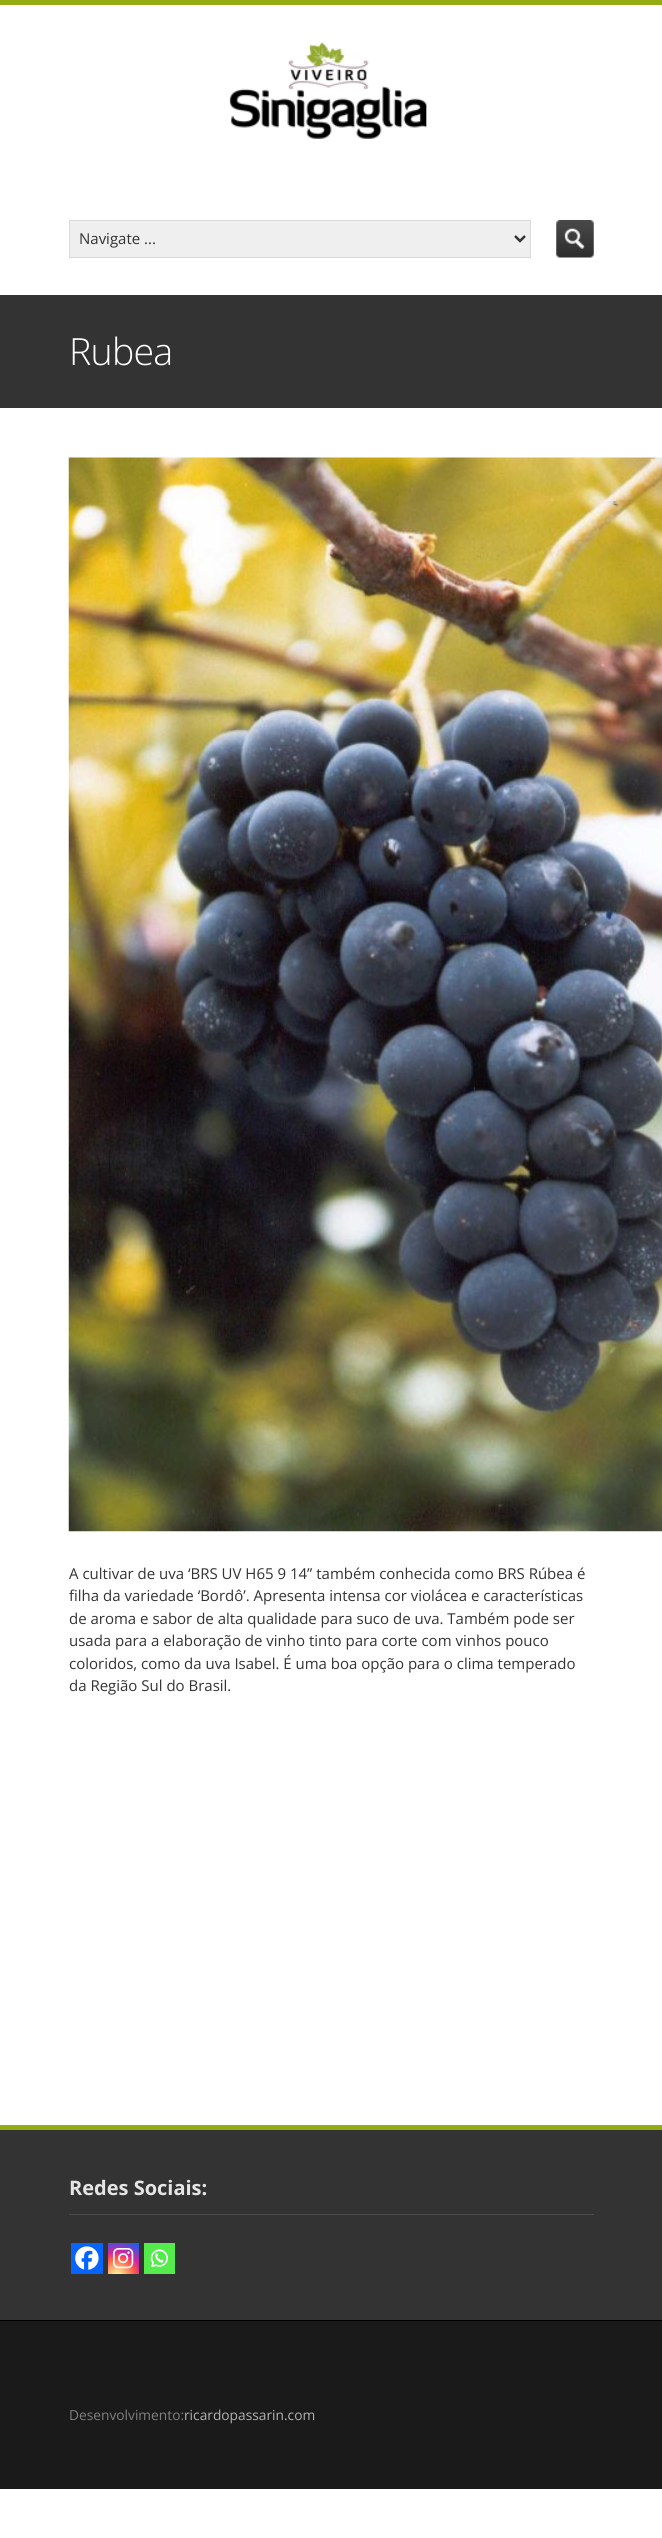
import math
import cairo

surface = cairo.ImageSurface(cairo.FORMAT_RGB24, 662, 2538)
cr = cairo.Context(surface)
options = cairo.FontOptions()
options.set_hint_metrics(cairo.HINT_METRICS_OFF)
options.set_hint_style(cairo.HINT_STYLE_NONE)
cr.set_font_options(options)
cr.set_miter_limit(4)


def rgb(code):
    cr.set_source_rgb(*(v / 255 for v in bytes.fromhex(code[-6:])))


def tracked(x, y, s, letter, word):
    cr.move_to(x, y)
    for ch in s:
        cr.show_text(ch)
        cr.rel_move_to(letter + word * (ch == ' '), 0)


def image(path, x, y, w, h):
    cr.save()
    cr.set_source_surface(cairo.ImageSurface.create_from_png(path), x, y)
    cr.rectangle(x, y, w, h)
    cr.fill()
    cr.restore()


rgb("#ffffff")
cr.paint()
rgb("#93ac12")
cr.rectangle(0, 0, 662, 5)
cr.fill()
image("img/1.png", 229, 42, 198, 97)
rgb("#efefef")
cr.rectangle(69.5, 220.5, 461, 37)
cr.fill_preserve()
rgb("#d9d9d9")
cr.set_line_width(1)
cr.stroke()
cr.new_path()
cr.move_to(515, 236)
cr.line_to(520, 241)
cr.line_to(525, 236)
rgb("#333333")
cr.set_line_width(2.5)
cr.stroke()
image("img/2.png", 556, 220, 38, 38)
cr.rectangle(0, 295, 662, 113)
cr.fill()
image("img/3.png", 68, 457, 594, 1075)
for x, y, w, h, color in [
    (0, 2130, 662, 190, "#333333"),
    (0, 2125, 662, 5, "#93ac12"),
    (69, 2214, 525, 1, "#4c4c4c"),
    (71, 2243, 32, 31, "#0765fe"),
]:
    rgb(color)
    cr.rectangle(x, y, w, h)
    cr.fill()
image("img/4.png", 75, 2246, 24, 24)
gradient = cairo.RadialGradient(117, 2276, 0, 117, 2276, 40)
gradient.add_color_stop_rgba(0, 0.992, 0.957, 0.592, 1)
gradient.add_color_stop_rgba(0.05, 0.992, 0.957, 0.592, 1)
gradient.add_color_stop_rgba(0.45, 0.992, 0.349, 0.286, 1)
gradient.add_color_stop_rgba(0.6, 0.839, 0.141, 0.624, 1)
gradient.add_color_stop_rgba(0.9, 0.157, 0.353, 0.922, 1)
cr.set_source(gradient)
cr.rectangle(108, 2243, 31, 31)
cr.fill()
image("img/5.png", 113, 2248, 21, 21)
rgb("#55eb4c")
cr.rectangle(144, 2243, 31, 31)
cr.fill()
image("img/6.png", 150, 2249, 18, 18)
rgb("#1a1a1a")
cr.rectangle(0, 2321, 662, 168)
cr.fill()
rgb("#000000")
cr.rectangle(0, 2320, 662, 1)
cr.fill()
cr.select_font_face("Open Sans")
cr.set_font_size(15)
rgb("#333333")
cr.move_to(79, 244)
cr.show_text("Navigate ...")
cr.select_font_face("Open Sans Light")
cr.set_font_size(37.5)
rgb("#ffffff")
tracked(69, 365, "Rubea", -0.75, 0)
cr.select_font_face("Open Sans")
cr.set_font_size(15)
rgb("#333333")
for x, y, s in [
    (69, 1579, "A cultivar de uva ‘BRS UV H65 9 14” também conhecida como BRS Rúbea é"),
    (69, 1601, "filha da variedade ‘Bordô’. Apresenta intensa cor violácea e características"),
    (69, 1624, "de aroma e sabor de alta qualidade para suco de uva. Também pode ser"),
    (69, 1646, "usada para a elaboração de vinho tinto para corte com vinhos pouco"),
    (69, 1669, "coloridos, como da uva Isabel. É uma boa opção para o clima temperado"),
    (69, 1691, "da Região Sul do Brasil."),
]:
    cr.move_to(x, y)
    cr.show_text(s)
cr.select_font_face("Open Sans", cairo.FONT_SLANT_NORMAL, cairo.FONT_WEIGHT_BOLD)
cr.set_font_size(20)
rgb("#e5e5e5")
cr.move_to(69, 2195)
cr.show_text("Redes Sociais:")
cr.select_font_face("Open Sans")
cr.set_font_size(13.75)
rgb("#808080")
cr.move_to(69, 2420)
cr.show_text("Desenvolvimento:")
rgb("#b2b2b2")
cr.move_to(184, 2420)
cr.show_text("ricardopassarin.com")
surface.write_to_png("page.png")
